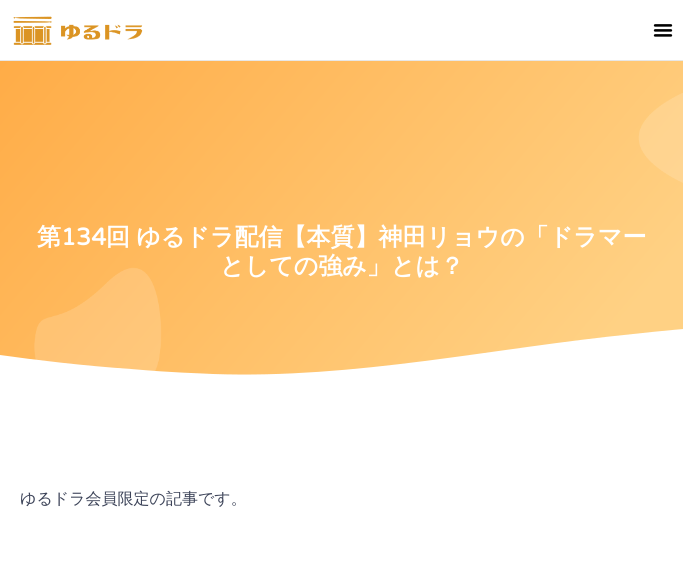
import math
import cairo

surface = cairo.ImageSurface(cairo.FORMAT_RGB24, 683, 575)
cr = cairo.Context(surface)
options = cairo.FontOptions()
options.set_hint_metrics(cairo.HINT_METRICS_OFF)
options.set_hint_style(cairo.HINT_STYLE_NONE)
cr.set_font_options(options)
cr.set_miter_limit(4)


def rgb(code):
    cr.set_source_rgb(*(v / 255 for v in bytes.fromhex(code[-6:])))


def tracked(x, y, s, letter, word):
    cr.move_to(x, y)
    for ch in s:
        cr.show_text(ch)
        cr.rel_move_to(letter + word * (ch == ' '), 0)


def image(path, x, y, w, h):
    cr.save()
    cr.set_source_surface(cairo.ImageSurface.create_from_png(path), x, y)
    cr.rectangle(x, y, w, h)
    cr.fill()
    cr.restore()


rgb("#ffffff")
cr.paint()
rgb("#e7e7e7")
cr.rectangle(0, 60, 683, 1)
cr.fill()
image("img/1.png", 13, 16, 130, 29)
image("img/2.png", 653, 24, 20, 13)
gradient = cairo.LinearGradient(64, -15, 619, 452)
gradient.add_color_stop_rgba(0, 1, 0.675, 0.278, 1)
gradient.add_color_stop_rgba(0.89, 1, 0.82, 0.518, 1)
cr.set_source(gradient)
cr.rectangle(0, 61, 683, 314)
cr.fill()
image("img/3.png", 34, 93, 649, 278)
cr.save()
cr.rectangle(0, 319, 683, 58)
cr.clip()
rgb("#ffffff")
cr.new_path()
cr.move_to(213, 374)
cr.curve_to(355, 379, 493, 348, 633, 334)
cr.curve_to(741, 322, 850, 318, 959, 322)
cr.curve_to(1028, 324, 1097, 328, 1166, 338)
cr.line_to(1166, 378)
cr.line_to(-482, 378)
cr.line_to(-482, 360)
cr.curve_to(-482, 360, -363, 341, -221, 342)
cr.curve_to(-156, 343, -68, 346, 0, 355)
cr.curve_to(35, 360, 86, 366, 131, 369)
cr.curve_to(176, 373, 196, 373, 213, 374)
cr.close_path()
cr.fill()
cr.restore()
cr.select_font_face("WenQuanYi Zen Hei", cairo.FONT_SLANT_NORMAL, cairo.FONT_WEIGHT_BOLD)
cr.set_font_size(24)
rgb("#ffffff")
cr.move_to(37, 245)
cr.show_text("第")
cr.select_font_face("Varela Round", cairo.FONT_SLANT_NORMAL, cairo.FONT_WEIGHT_BOLD)
cr.move_to(61, 245)
cr.show_text("134")
cr.select_font_face("WenQuanYi Zen Hei", cairo.FONT_SLANT_NORMAL, cairo.FONT_WEIGHT_BOLD)
tracked(106, 245, "回 ゆるドラ配信【本質】神田リョウの「ドラマー", 0, -1)
cr.move_to(220, 274)
cr.show_text("としての強み」とは？")
cr.select_font_face("WenQuanYi Zen Hei Medium")
cr.set_font_size(16)
rgb("#3d4459")
cr.move_to(20, 504)
cr.show_text("ゆるドラ会員限定の記事です。")
surface.write_to_png("page.png")
